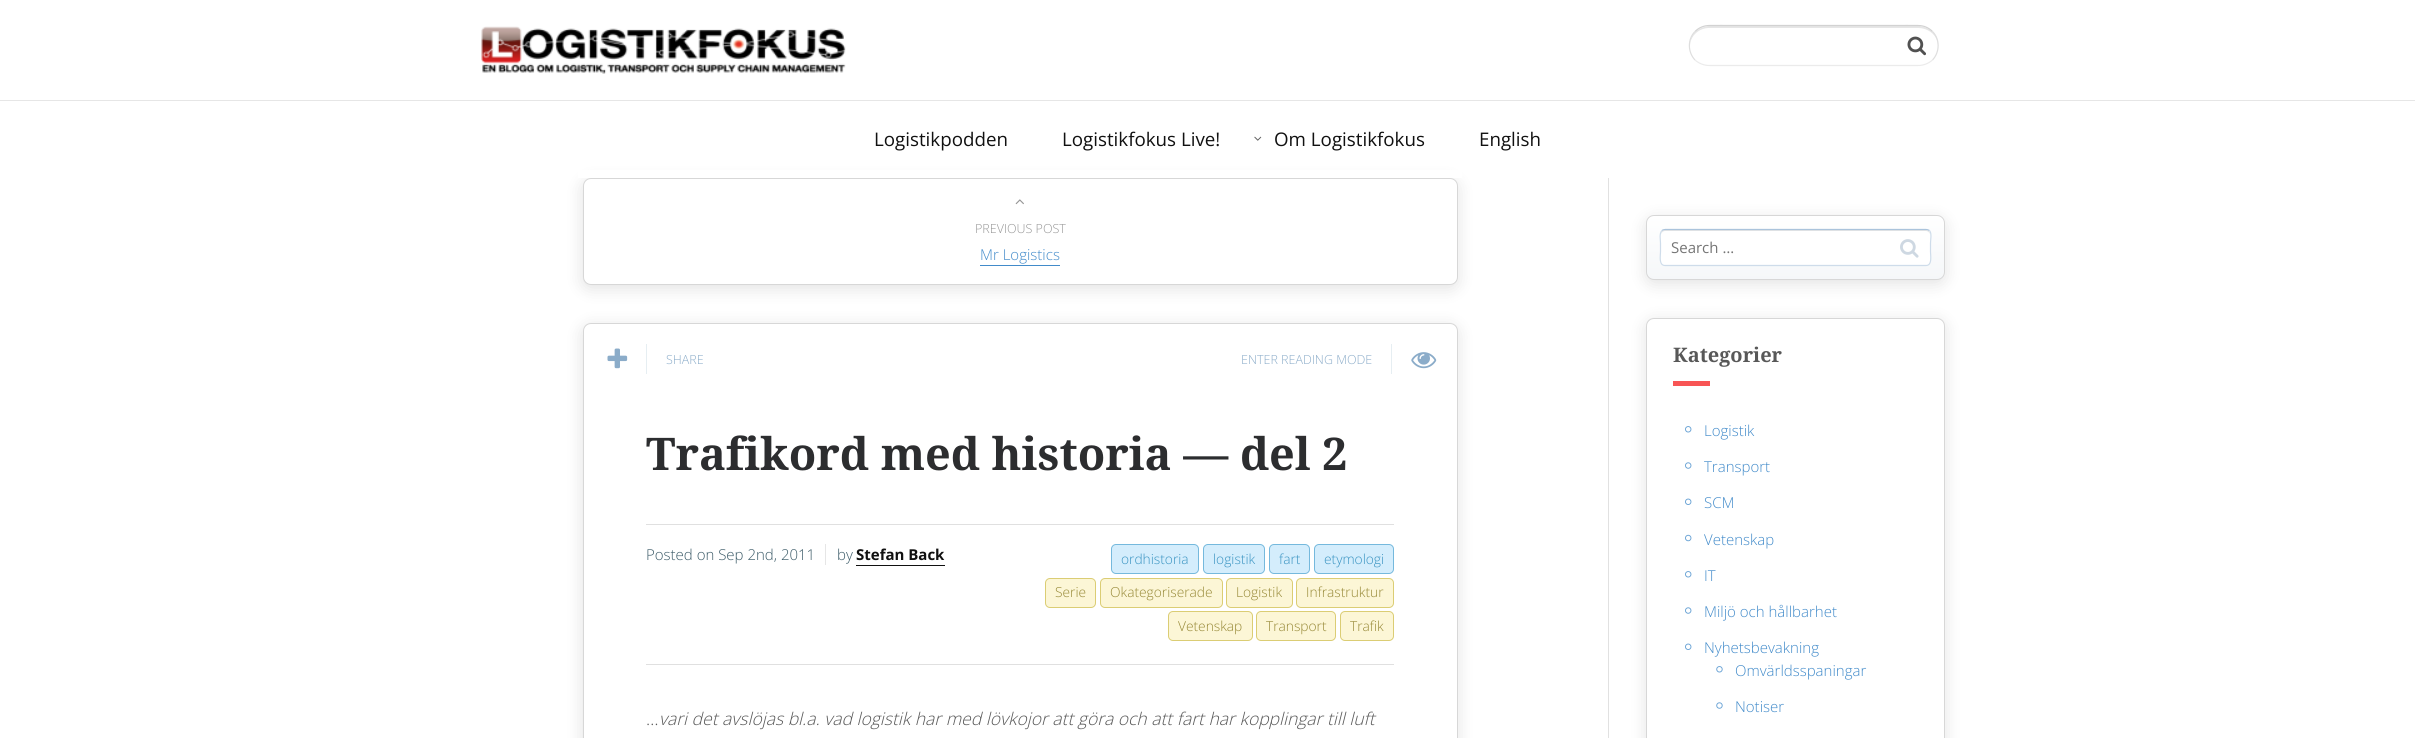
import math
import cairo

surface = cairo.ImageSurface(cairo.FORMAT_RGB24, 2415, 738)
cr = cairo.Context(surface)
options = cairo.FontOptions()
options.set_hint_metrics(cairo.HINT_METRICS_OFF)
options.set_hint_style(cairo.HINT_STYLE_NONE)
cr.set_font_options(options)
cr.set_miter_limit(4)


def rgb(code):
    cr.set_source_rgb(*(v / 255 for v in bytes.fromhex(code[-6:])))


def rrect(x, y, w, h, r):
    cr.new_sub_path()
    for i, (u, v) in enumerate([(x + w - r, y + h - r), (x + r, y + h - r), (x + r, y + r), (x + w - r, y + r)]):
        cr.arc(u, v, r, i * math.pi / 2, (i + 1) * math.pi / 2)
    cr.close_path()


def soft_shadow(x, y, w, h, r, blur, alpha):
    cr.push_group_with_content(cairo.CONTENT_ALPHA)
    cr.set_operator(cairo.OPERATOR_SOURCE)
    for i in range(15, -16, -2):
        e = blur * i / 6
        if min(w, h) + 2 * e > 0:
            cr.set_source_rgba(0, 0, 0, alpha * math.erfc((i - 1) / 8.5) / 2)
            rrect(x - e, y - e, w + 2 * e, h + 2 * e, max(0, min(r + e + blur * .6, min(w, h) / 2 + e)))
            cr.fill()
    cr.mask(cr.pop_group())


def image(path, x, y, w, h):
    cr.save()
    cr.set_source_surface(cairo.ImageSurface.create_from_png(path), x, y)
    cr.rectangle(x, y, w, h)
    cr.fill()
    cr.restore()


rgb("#ffffff")
cr.paint()
rgb("#000000")
soft_shadow(581, 180, 878, 110, 9, 7.5, 0.1)
rgb("#ffffff")
cr.rectangle(578, 170, 884, 8)
cr.fill()
image("img/1.png", 481, 26, 365, 48)
rgb("#e6e6e6")
cr.new_path()
cr.move_to(1709, 28)
cr.line_to(1918, 28)
cr.curve_to(1929, 28, 1938, 36, 1938, 46)
cr.curve_to(1939, 18, 1898, 26, 1884, 26)
cr.line_to(1744, 26)
cr.curve_to(1730, 26, 1689, 18, 1690, 46)
cr.curve_to(1690, 36, 1699, 28, 1709, 28)
cr.close_path()
cr.fill()
cr.new_path()
cr.move_to(1695, 31.5)
cr.curve_to(1699, 27.5, 1704, 25.5, 1709.5, 25.5)
cr.line_to(1918, 25.5)
cr.curve_to(1923.5, 25.5, 1928.5, 27.5, 1932.5, 31.5)
rgb("#d2d2d2")
cr.set_line_width(1.2)
cr.stroke()
cr.new_path()
cr.move_to(1932.5, 31.5)
cr.curve_to(1940, 39, 1940, 52, 1932.5, 60)
rgb("#dedede")
cr.stroke()
cr.new_path()
cr.move_to(1932.5, 60)
cr.curve_to(1928.5, 63.5, 1923.5, 65.5, 1918, 65.5)
cr.line_to(1709.5, 65.5)
cr.curve_to(1704, 65.5, 1699, 63.5, 1695, 60)
rgb("#ebebeb")
cr.stroke()
cr.new_path()
cr.move_to(1695, 60)
cr.curve_to(1687.5, 52, 1687.5, 39, 1695, 31.5)
rgb("#dedede")
cr.stroke()
image("img/2.png", 1907, 36, 19, 20)
rgb("#e6e6e6")
cr.rectangle(0, 100, 2415, 1)
cr.fill()
image("img/3.png", 1254, 136, 8, 5)
rgb("#ffffff")
rrect(583.5, 178.5, 874, 106, 7.5)
cr.fill_preserve()
rgb("#d7d7d7")
cr.set_line_width(1)
cr.stroke()
image("img/4.png", 1015, 199, 9, 6)
rgb("#428bca")
cr.rectangle(980, 265, 80, 1)
cr.fill()
rgb("#000000")
soft_shadow(581, 325, 878, 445, 9, 7.5, 0.1)
rgb("#ffffff")
rrect(583.5, 323.5, 874, 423, 7.5)
cr.fill_preserve()
rgb("#d7d7d7")
cr.stroke()
rgb("#e6eef2")
cr.rectangle(646, 344, 1, 30)
cr.fill()
image("img/5.png", 607, 348, 21, 21)
cr.rectangle(1391, 344, 1, 30)
cr.fill()
image("img/6.png", 1411, 352, 26, 17)
for x, y, w, h, color in [
    (646, 524, 748, 1, "#e0e0e0"),
    (646, 664, 748, 1, "#e0e0e0"),
    (825, 544, 1, 21, "#e6e6e6"),
    (856, 565, 89, 1, "#111111"),
]:
    rgb(color)
    cr.rectangle(x, y, w, h)
    cr.fill()
rgb("#d4edfc")
rrect(1111.5, 544.5, 87, 29, 4.5)
cr.fill_preserve()
rgb("#75b9dd")
cr.stroke()
rgb("#d4edfc")
rrect(1203.5, 544.5, 61, 29, 4.5)
cr.fill_preserve()
rgb("#75b9dd")
cr.stroke()
rgb("#d4edfc")
rrect(1269.5, 544.5, 40, 29, 4.5)
cr.fill_preserve()
rgb("#75b9dd")
cr.stroke()
rgb("#d4edfc")
rrect(1314.5, 544.5, 79, 29, 4.5)
cr.fill_preserve()
rgb("#75b9dd")
cr.stroke()
rgb("#fcf6d6")
rrect(1045.5, 578.5, 50, 29, 4.5)
cr.fill_preserve()
rgb("#dbcd74")
cr.stroke()
rgb("#fcf6d6")
rrect(1100.5, 578.5, 122, 29, 4.5)
cr.fill_preserve()
rgb("#dbcd74")
cr.stroke()
rgb("#fcf6d6")
rrect(1226.5, 578.5, 66, 29, 4.5)
cr.fill_preserve()
rgb("#dbcd74")
cr.stroke()
rgb("#fcf6d6")
rrect(1296.5, 578.5, 97, 29, 4.5)
cr.fill_preserve()
rgb("#dbcd74")
cr.stroke()
rgb("#fcf6d6")
rrect(1168.5, 611.5, 84, 29, 4.5)
cr.fill_preserve()
rgb("#dbcd74")
cr.stroke()
rgb("#fcf6d6")
rrect(1256.5, 611.5, 79, 29, 4.5)
cr.fill_preserve()
rgb("#dbcd74")
cr.stroke()
rgb("#fcf6d6")
rrect(1340.5, 611.5, 53, 29, 4.5)
cr.fill_preserve()
rgb("#dbcd74")
cr.stroke()
rgb("#e1e1e1")
cr.rectangle(1608, 178, 1, 560)
cr.fill()
rgb("#000000")
soft_shadow(1645, 218, 301, 67, 9, 7.5, 0.1)
cr.save()
rrect(1646, 215, 299, 65, 8)
cr.clip()
gradient = cairo.LinearGradient(1796, 216, 1796, 279)
gradient.add_color_stop_rgba(0, 1, 1, 1, 1)
gradient.add_color_stop_rgba(1, 0.961, 0.969, 0.976, 1)
cr.set_source(gradient)
cr.rectangle(1646, 216, 299, 63)
cr.fill()
cr.restore()
rrect(1646.5, 215.5, 298, 64, 7.5)
rgb("#d7d7d7")
cr.stroke()
rgb("#ffffff")
rrect(1660, 229, 271, 37, 5)
cr.fill()
rgb("#e6e6e6")
cr.new_path()
cr.move_to(1665, 231)
cr.line_to(1926, 231)
cr.curve_to(1928, 231, 1930, 233, 1930, 235)
cr.curve_to(1930, 232, 1929, 230, 1926, 230)
cr.line_to(1665, 230)
cr.curve_to(1662, 230, 1661, 232, 1661, 235)
cr.curve_to(1661, 233, 1663, 231, 1665, 231)
cr.close_path()
cr.fill()
cr.new_path()
cr.move_to(1662, 230.5)
cr.curve_to(1662.5, 230, 1664, 229.5, 1665, 229.5)
cr.line_to(1926, 229.5)
cr.curve_to(1927.5, 229.5, 1928.5, 230, 1929.5, 230.5)
rgb("#aac3db")
cr.set_line_width(1.2)
cr.stroke()
cr.new_path()
cr.move_to(1929.5, 230.5)
cr.curve_to(1932, 233.5, 1930.5, 240, 1930.5, 243)
cr.line_to(1930.5, 252)
cr.curve_to(1930.5, 255.5, 1932.5, 265.5, 1926, 265.5)
cr.line_to(1665, 265.5)
cr.curve_to(1658.5, 265.5, 1660.5, 255.5, 1660.5, 252)
cr.line_to(1660.5, 243)
cr.curve_to(1660.5, 240, 1659, 233.5, 1662, 230.5)
rgb("#cedcea")
cr.stroke()
image("img/7.png", 1900, 239, 19, 19)
rgb("#000000")
soft_shadow(1645, 320, 301, 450, 9, 7.5, 0.1)
rgb("#ffffff")
rrect(1646.5, 318.5, 298, 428, 7.5)
cr.fill_preserve()
rgb("#d7d7d7")
cr.set_line_width(1)
cr.stroke()
rgb("#f85555")
cr.rectangle(1673, 381, 37, 5)
cr.fill()
image("img/8.png", 1685, 426, 7, 7)
image("img/9.png", 1685, 462, 7, 7)
image("img/10.png", 1685, 498, 7, 7)
image("img/11.png", 1685, 534, 7, 8)
image("img/8.png", 1685, 571, 7, 7)
image("img/9.png", 1685, 607, 7, 7)
image("img/10.png", 1685, 643, 7, 7)
image("img/12.png", 1716, 666, 7, 7)
image("img/13.png", 1716, 702, 7, 7)
cr.select_font_face("Open Sans")
cr.set_font_size(18.75)
rgb("#111111")
for x, y, s in [
    (874, 146, "Logistikpodden"),
    (1062, 146, "Logistikfokus Live!"),
    (1274, 146, "Om Logistikfokus"),
    (1479, 146, "English"),
]:
    cr.move_to(x, y)
    cr.show_text(s)
cr.select_font_face("Open Sans Light")
cr.set_font_size(12.5)
rgb("#959595")
cr.move_to(975, 233)
cr.show_text("PREVIOUS POST")
cr.set_font_size(15)
rgb("#428bca")
cr.move_to(980, 260)
cr.show_text("Mr Logistics")
cr.set_font_size(12.5)
rgb("#8bacc9")
cr.move_to(666, 364)
cr.show_text("SHARE")
cr.move_to(1241, 364)
cr.show_text("ENTER READING MODE")
cr.select_font_face("Droid Serif", cairo.FONT_SLANT_NORMAL, cairo.FONT_WEIGHT_BOLD)
cr.set_font_size(45)
rgb("#2c2d2f")
cr.move_to(646, 470)
cr.show_text("Trafikord med historia — del 2")
cr.select_font_face("Open Sans Light")
cr.set_font_size(15)
rgb("#3c5b68")
cr.move_to(646, 560)
cr.show_text("Posted on Sep 2nd, 2011")
cr.move_to(837, 560)
cr.show_text("by")
cr.select_font_face("Open Sans", cairo.FONT_SLANT_NORMAL, cairo.FONT_WEIGHT_BOLD)
rgb("#111111")
cr.move_to(856, 560)
cr.show_text("Stefan Back")
cr.select_font_face("Open Sans Light")
cr.set_font_size(13.75)
rgb("#3893c1")
for x, y, s in [
    (1121, 564, "ordhistoria"),
    (1213, 564, "logistik"),
    (1279, 564, "fart"),
    (1324, 564, "etymologi"),
]:
    cr.move_to(x, y)
    cr.show_text(s)
rgb("#968836")
for x, y, s in [
    (1055, 597, "Serie"),
    (1110, 597, "Okategoriserade"),
    (1236, 597, "Logistik"),
    (1306, 597, "Infrastruktur"),
    (1178, 631, "Vetenskap"),
    (1266, 631, "Transport"),
    (1350, 631, "Trafik"),
]:
    cr.move_to(x, y)
    cr.show_text(s)
cr.set_font_size(17.5)
rgb("#585858")
cr.move_to(646, 725)
cr.show_text("…")
cr.select_font_face("Open Sans Light", cairo.FONT_SLANT_ITALIC)
cr.move_to(659, 725)
cr.show_text("vari det avslöjas bl.a. vad logistik har med lövkojor att göra och att fart har kopplingar till luft")
cr.select_font_face("Open Sans")
cr.set_font_size(15)
rgb("#757575")
cr.move_to(1671, 253)
cr.show_text("Search …")
cr.select_font_face("Droid Serif", cairo.FONT_SLANT_NORMAL, cairo.FONT_WEIGHT_BOLD)
cr.set_font_size(20)
rgb("#585858")
cr.move_to(1673, 362)
cr.show_text("Kategorier")
cr.select_font_face("Open Sans Light")
cr.set_font_size(15)
rgb("#428bca")
for x, y, s in [
    (1704, 436, "Logistik"),
    (1704, 472, "Transport"),
    (1704, 508, "SCM"),
    (1704, 545, "Vetenskap"),
    (1704, 581, "IT"),
    (1704, 617, "Miljö och hållbarhet"),
    (1704, 653, "Nyhetsbevakning"),
    (1735, 676, "Omvärldsspaningar"),
    (1735, 712, "Notiser"),
]:
    cr.move_to(x, y)
    cr.show_text(s)
surface.write_to_png("page.png")
